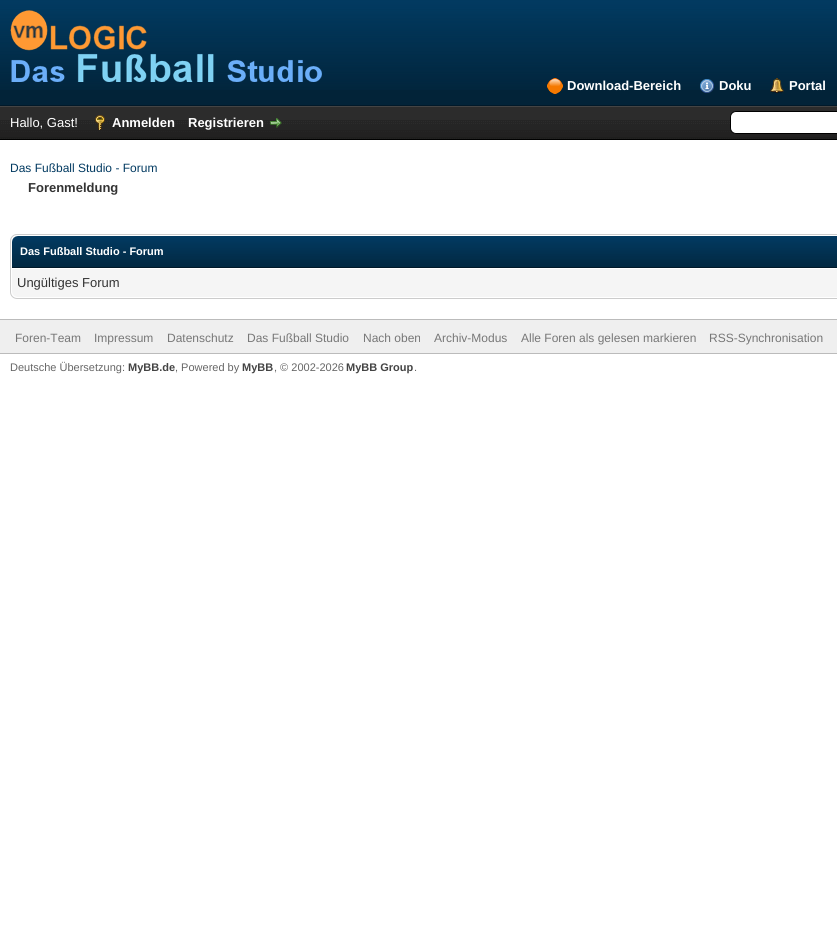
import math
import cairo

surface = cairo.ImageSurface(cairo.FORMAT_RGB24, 837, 946)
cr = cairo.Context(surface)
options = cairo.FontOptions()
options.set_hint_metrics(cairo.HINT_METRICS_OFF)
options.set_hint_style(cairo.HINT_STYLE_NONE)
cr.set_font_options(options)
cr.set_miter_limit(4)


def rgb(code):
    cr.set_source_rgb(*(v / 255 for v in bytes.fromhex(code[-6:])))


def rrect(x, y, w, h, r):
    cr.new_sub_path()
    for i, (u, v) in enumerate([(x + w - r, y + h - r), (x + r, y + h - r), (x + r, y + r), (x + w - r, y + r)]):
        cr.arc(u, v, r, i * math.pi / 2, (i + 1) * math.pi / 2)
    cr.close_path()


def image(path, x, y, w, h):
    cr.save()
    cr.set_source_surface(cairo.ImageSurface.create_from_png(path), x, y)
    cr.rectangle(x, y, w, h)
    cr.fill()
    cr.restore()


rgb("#ffffff")
cr.paint()
rgb("#022338")
cr.rectangle(0, 90, 837, 15)
cr.fill()
image("img/1.png", 0, 0, 837, 90)
rgb("#011929")
cr.rectangle(0, 105, 837, 1)
cr.fill()
image("img/2.png", 10, 10, 312, 72)
image("img/3.png", 547, 78, 16, 16)
image("img/4.png", 700, 79, 14, 14)
image("img/5.png", 770, 78, 14, 16)
image("img/6.png", 0, 107, 837, 32)
rgb("#444444")
cr.rectangle(0, 106, 837, 1)
cr.fill()
rgb("#000000")
cr.rectangle(0, 139, 837, 1)
cr.fill()
image("img/7.png", 95, 115, 10, 15)
image("img/8.png", 270, 118, 12, 10)
rgb("#ffffff")
rrect(730.5, 111.5, 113, 22, 5.5)
cr.fill_preserve()
rgb("#000000")
cr.set_line_width(1)
cr.stroke()
rrect(10.5, 234.5, 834, 64, 6.5)
rgb("#cccccc")
cr.stroke()
image("img/9.png", 12, 236, 825, 31)
rgb("#011929")
cr.rectangle(12, 267, 825, 1)
cr.fill()
rgb("#f5f5f5")
cr.new_path()
cr.move_to(12, 268)
cr.line_to(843, 268)
cr.line_to(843, 291)
cr.curve_to(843, 294.5, 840.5, 297, 837, 297)
cr.line_to(18, 297)
cr.curve_to(14.5, 297, 12, 294.5, 12, 291)
cr.close_path()
cr.fill()
for x, y, w, h, color in [
    (12, 268, 825, 1, "#ffffff"),
    (0, 320, 837, 33, "#efefef"),
    (0, 319, 837, 1, "#bbbbbb"),
    (0, 353, 837, 1, "#bbbbbb"),
]:
    rgb(color)
    cr.rectangle(x, y, w, h)
    cr.fill()
cr.select_font_face("Liberation Sans", cairo.FONT_SLANT_NORMAL, cairo.FONT_WEIGHT_BOLD)
cr.set_font_size(13)
rgb("#ffffff")
for x, y, s in [
    (567, 90, "Download-Bereich"),
    (719, 90, "Doku"),
    (789, 90, "Portal"),
]:
    cr.move_to(x, y)
    cr.show_text(s)
cr.select_font_face("Liberation Sans")
cr.move_to(10, 127)
cr.show_text("Hallo, Gast!")
cr.select_font_face("Liberation Sans", cairo.FONT_SLANT_NORMAL, cairo.FONT_WEIGHT_BOLD)
cr.move_to(112, 127)
cr.show_text("Anmelden")
cr.move_to(188, 127)
cr.show_text("Registrieren")
cr.select_font_face("Liberation Sans")
cr.set_font_size(12)
rgb("#023a61")
cr.move_to(10, 172)
cr.show_text("Das Fußball Studio - Forum")
cr.select_font_face("Liberation Sans", cairo.FONT_SLANT_NORMAL, cairo.FONT_WEIGHT_BOLD)
cr.set_font_size(13)
rgb("#333333")
cr.move_to(28, 192)
cr.show_text("Forenmeldung")
cr.set_font_size(11)
rgb("#ffffff")
cr.move_to(20, 255)
cr.show_text("Das Fußball Studio - Forum")
cr.select_font_face("Liberation Sans")
cr.set_font_size(13)
rgb("#333333")
cr.move_to(17, 287)
cr.show_text("Ungültiges Forum")
cr.set_font_size(12)
rgb("#777777")
for x, y, s in [
    (15, 342, "Foren-Team"),
    (94, 342, "Impressum"),
    (167, 342, "Datenschutz"),
    (247, 342, "Das Fußball Studio"),
    (363, 342, "Nach oben"),
    (434, 342, "Archiv-Modus"),
    (521, 342, "Alle Foren als gelesen markieren"),
    (709, 342, "RSS-Synchronisation"),
]:
    cr.move_to(x, y)
    cr.show_text(s)
cr.set_font_size(11)
rgb("#666666")
cr.move_to(10, 371)
cr.show_text("Deutsche Übersetzung:")
cr.select_font_face("Liberation Sans", cairo.FONT_SLANT_NORMAL, cairo.FONT_WEIGHT_BOLD)
rgb("#444444")
cr.move_to(128, 371)
cr.show_text("MyBB.de")
cr.select_font_face("Liberation Sans")
rgb("#666666")
cr.move_to(175, 371)
cr.show_text(", Powered by")
cr.select_font_face("Liberation Sans", cairo.FONT_SLANT_NORMAL, cairo.FONT_WEIGHT_BOLD)
rgb("#444444")
cr.move_to(242, 371)
cr.show_text("MyBB")
cr.select_font_face("Liberation Sans")
rgb("#666666")
cr.move_to(274, 371)
cr.show_text(", © 2002-2026")
cr.select_font_face("Liberation Sans", cairo.FONT_SLANT_NORMAL, cairo.FONT_WEIGHT_BOLD)
rgb("#444444")
cr.move_to(346, 371)
cr.show_text("MyBB Group")
cr.select_font_face("Liberation Sans")
rgb("#666666")
cr.move_to(414, 371)
cr.show_text(".")
surface.write_to_png("page.png")
